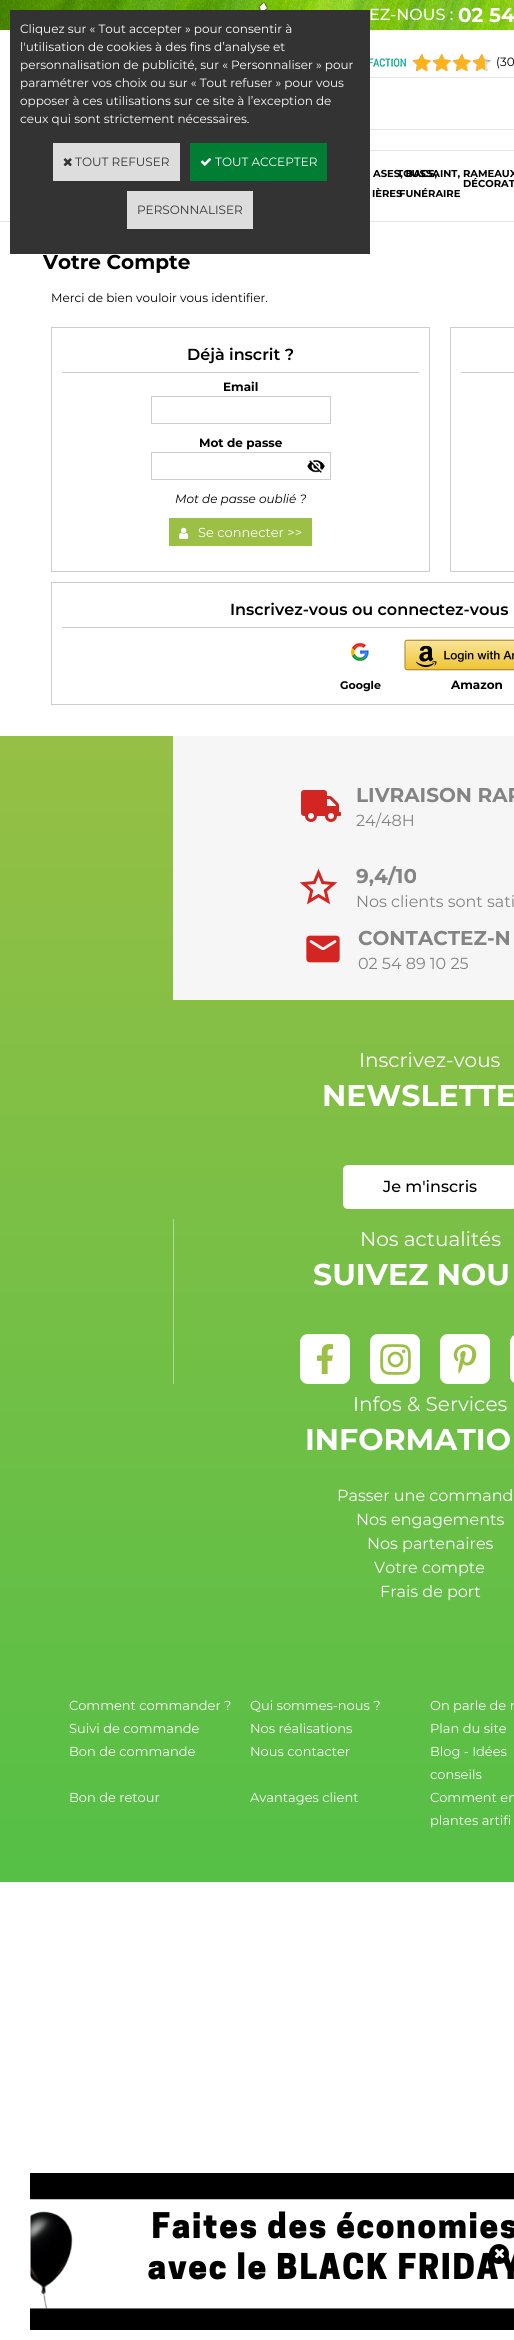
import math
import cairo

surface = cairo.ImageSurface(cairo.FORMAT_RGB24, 514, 2340)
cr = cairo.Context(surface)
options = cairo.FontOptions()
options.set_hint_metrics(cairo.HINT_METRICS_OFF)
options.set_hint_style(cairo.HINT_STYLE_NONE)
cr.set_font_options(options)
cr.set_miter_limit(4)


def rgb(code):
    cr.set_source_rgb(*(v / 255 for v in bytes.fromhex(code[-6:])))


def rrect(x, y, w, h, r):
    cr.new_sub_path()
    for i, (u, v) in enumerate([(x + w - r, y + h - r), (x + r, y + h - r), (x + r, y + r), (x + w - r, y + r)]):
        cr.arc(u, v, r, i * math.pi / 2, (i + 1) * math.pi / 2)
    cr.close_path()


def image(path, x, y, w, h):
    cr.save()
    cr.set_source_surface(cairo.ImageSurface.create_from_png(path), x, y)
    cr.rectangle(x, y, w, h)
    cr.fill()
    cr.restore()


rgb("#ffffff")
cr.paint()
image("img/3.png", 0, 0, 514, 222)
cr.rectangle(276.5, 77.5, 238, 52)
rgb("#e4e4e4")
cr.set_line_width(1)
cr.stroke()
rgb("#333333")
cr.rectangle(10, 10, 360, 244)
cr.fill()
rgb("#dddddd")
cr.rectangle(53, 143, 127, 38)
cr.fill()
image("img/1.png", 63, 158, 9, 9)
rgb("#007e33")
cr.rectangle(190, 143, 137, 38)
cr.fill()
image("img/2.png", 200, 158, 12, 8)
rgb("#dddddd")
cr.rectangle(127, 191, 126, 38)
cr.fill()
image("img/4.png", 258, 1, 11, 9)
image("img/5.png", 370, 58, 36, 9)
image("img/6.png", 413, 54, 78, 17)
image("img/7.png", 413, 54, 72, 17)
rgb("#e4e4e4")
cr.rectangle(370, 150, 144, 1)
cr.fill()
cr.rectangle(51.5, 327.5, 378, 244)
rgb("#cccccc")
cr.stroke()
cr.rectangle(62, 372, 357, 1)
cr.fill()
cr.rectangle(151.5, 396.5, 179, 27)
cr.stroke()
cr.rectangle(151.5, 452.5, 179, 27)
cr.stroke()
image("img/8.png", 307, 460, 18, 13)
rgb("#9cbf46")
cr.rectangle(169, 518, 143, 28)
cr.fill()
image("img/9.png", 179, 527, 10, 12)
cr.rectangle(450.5, 327.5, 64, 244)
rgb("#cccccc")
cr.stroke()
cr.rectangle(461, 372, 53, 1)
cr.fill()
cr.rectangle(51.5, 582.5, 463, 122)
cr.stroke()
cr.rectangle(62, 627, 452, 1)
cr.fill()
image("img/10.png", 350, 642, 19, 20)
image("img/11.png", 404, 639, 110, 32)
gradient = cairo.LinearGradient(257, 736, 257, 1882)
gradient.add_color_stop_rgba(0, 0.588, 0.749, 0.271, 1)
gradient.add_color_stop_rgba(1, 0.333, 0.749, 0.275, 1)
cr.set_source(gradient)
cr.rectangle(0, 736, 514, 1146)
cr.fill()
gradient = cairo.LinearGradient(257, 736, 257, 1882)
gradient.add_color_stop_rgba(0, 0.757, 0.851, 0.569, 1)
gradient.add_color_stop_rgba(1, 0.608, 0.851, 0.573, 1)
cr.set_source(gradient)
cr.rectangle(173, 1219, 1, 165)
cr.fill()
rgb("#f6f6f6")
cr.rectangle(173, 736, 341, 264)
cr.fill()
image("img/12.png", 301, 790, 40, 32)
image("img/13.png", 299, 868, 39, 37)
image("img/14.png", 306, 935, 34, 28)
rgb("#ffffff")
rrect(343, 1165, 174, 44, 5)
cr.fill()
rrect(300, 1334, 50, 50, 8)
cr.fill()
image("img/15.png", 316, 1344, 18, 30)
rrect(370, 1334, 50, 50, 8)
cr.fill()
image("img/16.png", 380, 1344, 31, 31)
rrect(440, 1334, 50, 50, 8)
cr.fill()
image("img/17.png", 453, 1344, 24, 30)
rrect(510, 1334, 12, 50, 8)
cr.fill()
image("img/18.png", 30, 2173, 484, 157)
rgb("#000000")
cr.arc(499, 2254, 10, 0, 2 * math.pi)
cr.fill()
image("img/19.png", 494, 2248, 11, 11)
cr.select_font_face("Montserrat")
cr.set_font_size(12)
rgb("#ffffff")
for x, y, s in [
    (20, 33, "Cliquez sur « Tout accepter » pour consentir à"),
    (20, 51, "l'utilisation de cookies à des fins d’analyse et"),
    (20, 69, "personnalisation de publicité, sur « Personnaliser » pour"),
    (20, 87, "paramétrer vos choix ou sur « Tout refuser » pour vous"),
    (20, 105, "opposer à ces utilisations sur ce site à l’exception de"),
    (20, 123, "ceux qui sont strictement nécessaires."),
]:
    cr.move_to(x, y)
    cr.show_text(s)
rgb("#333333")
cr.move_to(75, 166)
cr.show_text("TOUT REFUSER")
rgb("#ffffff")
cr.move_to(215, 166)
cr.show_text("TOUT ACCEPTER")
rgb("#333333")
cr.move_to(137, 214)
cr.show_text("PERSONNALISER")
cr.select_font_face("Montserrat Medium")
cr.set_font_size(16)
rgb("#ffffff")
cr.move_to(369, 20)
cr.show_text("EZ-NOUS :")
cr.select_font_face("Montserrat", cairo.FONT_SLANT_NORMAL, cairo.FONT_WEIGHT_BOLD)
cr.set_font_size(20)
cr.move_to(458, 22)
cr.show_text("02 54")
cr.select_font_face("Montserrat")
cr.set_font_size(12)
rgb("#000000")
cr.move_to(496, 66)
cr.show_text("(30")
cr.select_font_face("Montserrat", cairo.FONT_SLANT_NORMAL, cairo.FONT_WEIGHT_BOLD)
cr.set_font_size(10)
for x, y, s in [
    (373, 177, "ASES, BACS,"),
    (372, 197, "IÈRES"),
    (397, 177, "TOUSSAINT, RAMEAUX"),
    (399, 197, "FUNÉRAIRE"),
    (463, 187, "DÉCORAT"),
]:
    cr.move_to(x, y)
    cr.show_text(s)
cr.set_font_size(20)
cr.move_to(43, 269)
cr.show_text("Votre Compte")
cr.select_font_face("Montserrat")
cr.set_font_size(12)
cr.move_to(51, 302)
cr.show_text("Merci de bien vouloir vous identifier.")
cr.select_font_face("Montserrat SemiBold")
cr.set_font_size(16)
cr.move_to(187, 360)
cr.show_text("Déjà inscrit ?")
cr.select_font_face("Montserrat", cairo.FONT_SLANT_NORMAL, cairo.FONT_WEIGHT_BOLD)
cr.set_font_size(12)
cr.move_to(223, 391)
cr.show_text("Email")
cr.move_to(199, 447)
cr.show_text("Mot de passe")
cr.select_font_face("Montserrat", cairo.FONT_SLANT_ITALIC)
cr.move_to(175, 503)
cr.show_text("Mot de passe oublié ?")
cr.select_font_face("Montserrat")
cr.set_font_size(13)
rgb("#ffffff")
cr.move_to(198, 537)
cr.show_text("Se connecter >>")
cr.select_font_face("Montserrat SemiBold")
cr.set_font_size(16)
rgb("#000000")
cr.move_to(230, 615)
cr.show_text("Inscrivez-vous ou connectez-vous")
cr.select_font_face("Montserrat", cairo.FONT_SLANT_NORMAL, cairo.FONT_WEIGHT_BOLD)
cr.set_font_size(11)
cr.move_to(340, 689)
cr.show_text("Google")
cr.set_font_size(12)
cr.move_to(451, 689)
cr.show_text("Amazon")
cr.set_font_size(20)
rgb("#848484")
cr.move_to(356, 802)
cr.show_text("LIVRAISON RAP")
cr.select_font_face("Montserrat")
cr.set_font_size(16)
cr.move_to(356, 826)
cr.show_text("24/48H")
cr.select_font_face("Montserrat", cairo.FONT_SLANT_NORMAL, cairo.FONT_WEIGHT_BOLD)
cr.set_font_size(20)
cr.move_to(356, 883)
cr.show_text("9,4/10")
cr.select_font_face("Montserrat")
cr.set_font_size(16)
cr.move_to(356, 907)
cr.show_text("Nos clients sont sati")
cr.select_font_face("Montserrat", cairo.FONT_SLANT_NORMAL, cairo.FONT_WEIGHT_BOLD)
cr.set_font_size(20)
cr.move_to(358, 945)
cr.show_text("CONTACTEZ-N")
cr.select_font_face("Montserrat")
cr.set_font_size(16)
cr.move_to(358, 969)
cr.show_text("02 54 89 10 25")
cr.set_font_size(20)
rgb("#ffffff")
cr.move_to(359, 1067)
cr.show_text("Inscrivez-vous")
cr.select_font_face("Montserrat", cairo.FONT_SLANT_NORMAL, cairo.FONT_WEIGHT_BOLD)
cr.set_font_size(30)
cr.move_to(322, 1106)
cr.show_text("NEWSLETTE")
cr.select_font_face("Montserrat Medium")
cr.set_font_size(16)
rgb("#000000")
cr.move_to(383, 1192)
cr.show_text("Je m'inscris")
cr.select_font_face("Montserrat")
cr.set_font_size(20)
rgb("#ffffff")
cr.move_to(360, 1246)
cr.show_text("Nos actualités")
cr.select_font_face("Montserrat", cairo.FONT_SLANT_NORMAL, cairo.FONT_WEIGHT_BOLD)
cr.set_font_size(30)
cr.move_to(313, 1285)
cr.show_text("SUIVEZ NOU")
cr.select_font_face("Montserrat")
cr.set_font_size(20)
cr.move_to(353, 1411)
cr.show_text("Infos & Services")
cr.select_font_face("Montserrat", cairo.FONT_SLANT_NORMAL, cairo.FONT_WEIGHT_BOLD)
cr.set_font_size(30)
cr.move_to(305, 1450)
cr.show_text("INFORMATIO")
cr.select_font_face("Montserrat")
cr.set_font_size(16)
for x, y, s in [
    (337, 1501, "Passer une command"),
    (356, 1525, "Nos engagements"),
    (367, 1549, "Nos partenaires"),
    (374, 1573, "Votre compte"),
    (380, 1597, "Frais de port"),
]:
    cr.move_to(x, y)
    cr.show_text(s)
cr.set_font_size(13)
for x, y, s in [
    (69, 1710, "Comment commander ?"),
    (250, 1710, "Qui sommes-nous ?"),
    (430, 1710, "On parle de n"),
    (69, 1733, "Suivi de commande"),
    (250, 1733, "Nos réalisations"),
    (430, 1733, "Plan du site"),
    (69, 1756, "Bon de commande"),
    (250, 1756, "Nous contacter"),
    (430, 1756, "Blog - Idées"),
    (430, 1779, "conseils"),
    (69, 1802, "Bon de retour"),
    (250, 1802, "Avantages client"),
    (430, 1802, "Comment en"),
    (430, 1825, "plantes artifi"),
]:
    cr.move_to(x, y)
    cr.show_text(s)
surface.write_to_png("page.png")
